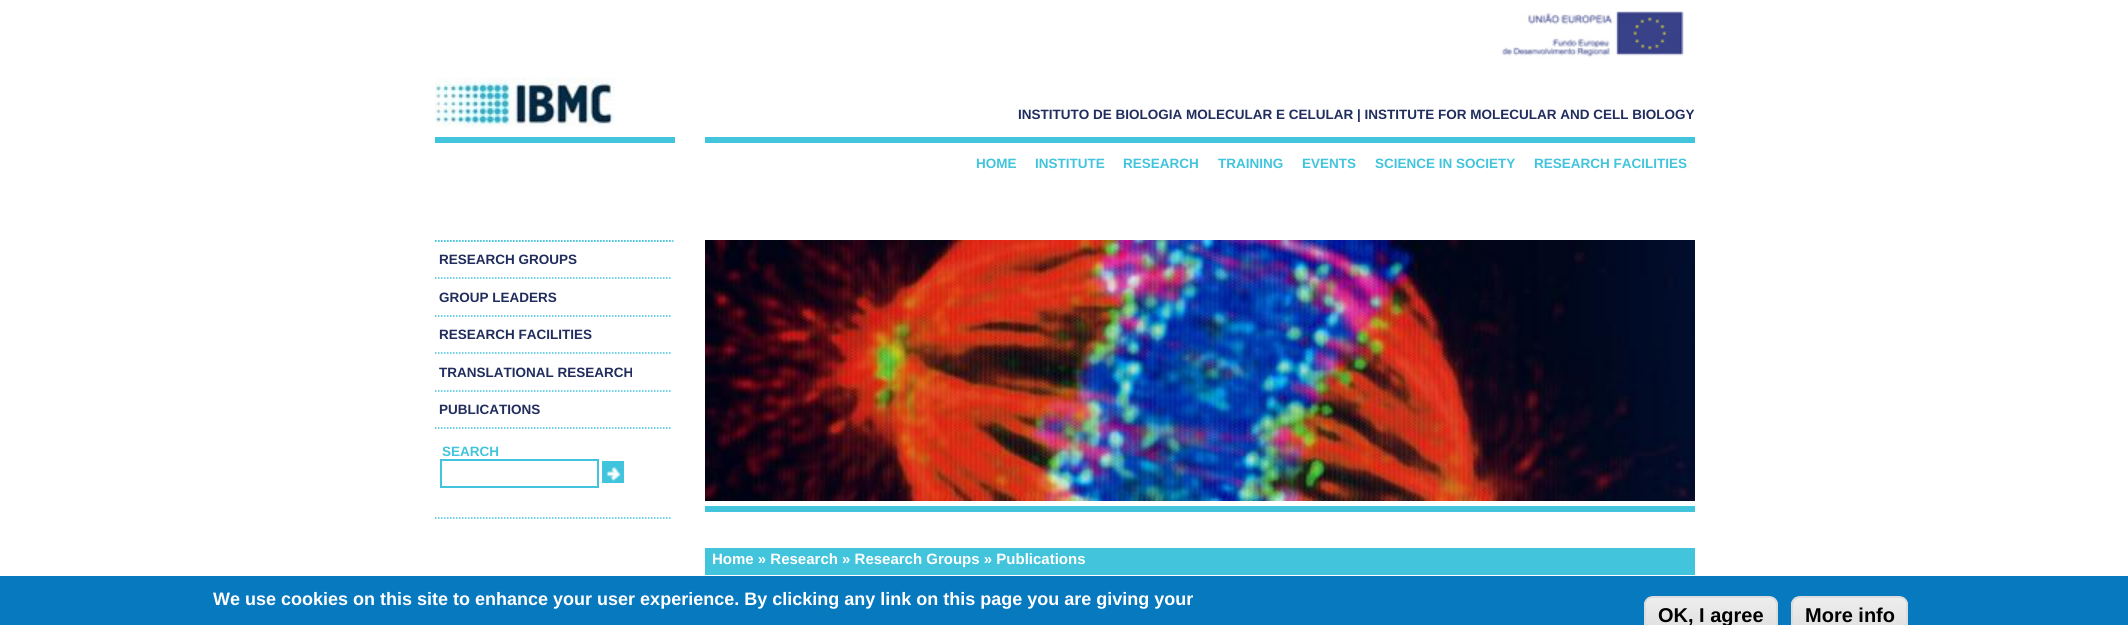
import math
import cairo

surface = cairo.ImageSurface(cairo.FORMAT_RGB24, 2128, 625)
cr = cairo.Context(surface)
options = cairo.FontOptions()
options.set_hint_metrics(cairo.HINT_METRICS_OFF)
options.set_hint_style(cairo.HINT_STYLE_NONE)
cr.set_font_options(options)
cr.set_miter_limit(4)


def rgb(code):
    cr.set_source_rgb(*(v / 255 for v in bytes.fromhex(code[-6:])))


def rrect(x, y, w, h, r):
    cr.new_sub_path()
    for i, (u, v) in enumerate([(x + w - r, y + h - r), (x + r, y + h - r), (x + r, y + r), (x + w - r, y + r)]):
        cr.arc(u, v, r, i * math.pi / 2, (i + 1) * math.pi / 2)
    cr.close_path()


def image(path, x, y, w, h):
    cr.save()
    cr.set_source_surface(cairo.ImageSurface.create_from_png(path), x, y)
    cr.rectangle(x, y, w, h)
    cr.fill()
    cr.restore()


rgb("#ffffff")
cr.paint()
image("img/1.png", 1501, 11, 183, 47)
rgb("#41c4dc")
cr.rectangle(435, 137, 240, 6)
cr.fill()
image("img/2.png", 435, 77, 180, 50)
cr.rectangle(705, 137, 990, 6)
cr.fill()
cr.new_path()
cr.move_to(435, 241)
cr.line_to(675, 241)
cr.set_line_width(1.5)
cr.set_dash([1.5, 1.5])
cr.stroke()
cr.new_path()
cr.move_to(435, 241)
cr.line_to(672, 241)
cr.stroke()
cr.new_path()
cr.move_to(435, 278)
cr.line_to(672, 278)
cr.stroke()
cr.new_path()
cr.move_to(435, 316)
cr.line_to(672, 316)
cr.stroke()
cr.new_path()
cr.move_to(435, 353)
cr.line_to(672, 353)
cr.stroke()
cr.new_path()
cr.move_to(435, 391)
cr.line_to(672, 391)
cr.stroke()
cr.new_path()
cr.move_to(435, 428)
cr.line_to(672, 428)
cr.stroke()
cr.new_path()
cr.move_to(435, 518)
cr.line_to(672, 518)
cr.stroke()
cr.rectangle(441, 460, 157, 27)
cr.set_line_width(2)
cr.set_dash([])
cr.stroke()
image("img/3.png", 604, 463, 18, 18)
cr.rectangle(603, 462, 20, 20)
cr.stroke()
cr.rectangle(705, 506, 990, 6)
cr.fill()
image("img/4.png", 705, 240, 990, 261)
cr.rectangle(705, 548, 990, 27)
cr.fill()
rgb("#0779bf")
cr.rectangle(0, 576, 2128, 49)
cr.fill()
cr.save()
rrect(1644, 596, 134, 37, 9)
cr.clip()
gradient = cairo.LinearGradient(1711, 597, 1711, 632)
gradient.add_color_stop_rgba(0.05, 0.929, 0.929, 0.929, 1)
gradient.add_color_stop_rgba(1, 0.875, 0.875, 0.875, 1)
cr.set_source(gradient)
cr.rectangle(1644, 597, 134, 28)
cr.fill()
cr.restore()
rgb("#ffffff")
cr.new_path()
cr.move_to(1653, 598)
cr.line_to(1768, 598)
cr.curve_to(1773, 598, 1776, 602, 1776, 606)
cr.curve_to(1776, 592, 1757, 597, 1749, 597)
cr.line_to(1673, 597)
cr.curve_to(1665, 597, 1646, 592, 1646, 606)
cr.curve_to(1646, 602, 1649, 598, 1653, 598)
cr.close_path()
cr.fill()
rrect(1645, 597, 132, 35, 8)
rgb("#dcdcdc")
cr.stroke()
cr.save()
rrect(1791, 596, 117, 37, 9)
cr.clip()
gradient = cairo.LinearGradient(1850, 597, 1850, 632)
gradient.add_color_stop_rgba(0.05, 0.929, 0.929, 0.929, 1)
gradient.add_color_stop_rgba(1, 0.875, 0.875, 0.875, 1)
cr.set_source(gradient)
cr.rectangle(1791, 597, 117, 28)
cr.fill()
cr.restore()
rgb("#ffffff")
cr.new_path()
cr.move_to(1800, 598)
cr.line_to(1899, 598)
cr.curve_to(1903, 598, 1906, 602, 1906, 606)
cr.line_to(1906, 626)
cr.line_to(1906, 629)
cr.curve_to(1906, 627, 1907, 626, 1907, 624)
cr.line_to(1907, 605)
cr.curve_to(1907, 601, 1903, 597, 1899, 597)
cr.line_to(1801, 597)
cr.curve_to(1798, 597, 1796, 599, 1794, 601)
cr.curve_to(1796, 599, 1798, 598, 1800, 598)
cr.close_path()
cr.fill()
rrect(1792, 597, 115, 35, 8)
rgb("#dcdcdc")
cr.stroke()
cr.select_font_face("Liberation Sans", cairo.FONT_SLANT_NORMAL, cairo.FONT_WEIGHT_BOLD)
cr.set_font_size(13.5)
rgb("#202d5d")
cr.move_to(1018, 119)
cr.show_text("INSTITUTO DE BIOLOGIA MOLECULAR E CELULAR | INSTITUTE FOR MOLECULAR AND CELL BIOLOGY")
rgb("#41c4dc")
for x, y, s in [
    (976, 168, "HOME"),
    (1035, 168, "INSTITUTE"),
    (1123, 168, "RESEARCH"),
    (1218, 168, "TRAINING"),
    (1302, 168, "EVENTS"),
    (1375, 168, "SCIENCE IN SOCIETY"),
    (1534, 168, "RESEARCH FACILITIES"),
]:
    cr.move_to(x, y)
    cr.show_text(s)
rgb("#202d5d")
for x, y, s in [
    (439, 264, "RESEARCH GROUPS"),
    (439, 302, "GROUP LEADERS"),
    (439, 339, "RESEARCH FACILITIES"),
    (439, 377, "TRANSLATIONAL RESEARCH"),
    (439, 414, "PUBLICATIONS"),
]:
    cr.move_to(x, y)
    cr.show_text(s)
rgb("#41c4dc")
cr.move_to(442, 456)
cr.show_text("SEARCH")
cr.set_font_size(15)
rgb("#ffffff")
cr.move_to(712, 564)
cr.show_text("Home » Research » Research Groups » Publications")
cr.set_font_size(18)
cr.move_to(213, 605)
cr.show_text("We use cookies on this site to enhance your user experience. By clicking any link on this page you are giving your")
cr.set_font_size(20)
rgb("#000000")
cr.move_to(1658, 622)
cr.show_text("OK, I agree")
cr.move_to(1805, 622)
cr.show_text("More info")
surface.write_to_png("page.png")
